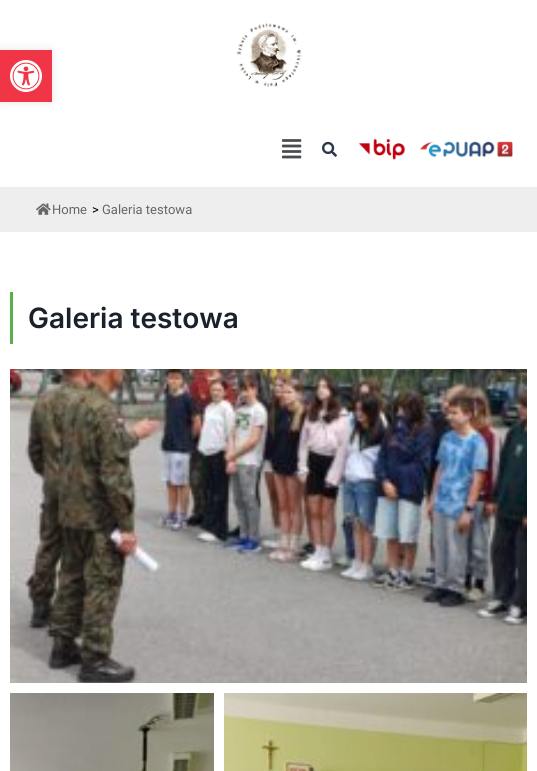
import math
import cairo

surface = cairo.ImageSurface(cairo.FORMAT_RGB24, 537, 771)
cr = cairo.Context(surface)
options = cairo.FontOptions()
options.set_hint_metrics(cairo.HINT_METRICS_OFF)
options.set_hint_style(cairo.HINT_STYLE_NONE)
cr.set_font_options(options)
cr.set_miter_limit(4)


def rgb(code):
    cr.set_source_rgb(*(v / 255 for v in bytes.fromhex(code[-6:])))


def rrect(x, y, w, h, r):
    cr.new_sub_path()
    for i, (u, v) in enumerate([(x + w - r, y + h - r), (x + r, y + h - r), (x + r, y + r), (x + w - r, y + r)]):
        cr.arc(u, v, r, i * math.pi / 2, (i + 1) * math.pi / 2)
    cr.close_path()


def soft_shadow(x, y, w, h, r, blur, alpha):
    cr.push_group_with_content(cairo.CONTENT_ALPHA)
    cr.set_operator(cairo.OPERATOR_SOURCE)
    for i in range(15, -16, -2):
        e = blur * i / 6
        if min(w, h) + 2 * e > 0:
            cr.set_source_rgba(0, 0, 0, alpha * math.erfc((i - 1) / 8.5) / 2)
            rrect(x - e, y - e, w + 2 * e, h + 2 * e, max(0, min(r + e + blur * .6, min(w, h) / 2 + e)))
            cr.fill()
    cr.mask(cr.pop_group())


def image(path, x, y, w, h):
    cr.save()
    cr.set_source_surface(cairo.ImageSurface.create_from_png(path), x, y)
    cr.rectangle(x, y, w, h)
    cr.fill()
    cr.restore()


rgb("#ffffff")
cr.paint()
rgb("#000000")
soft_shadow(0, 50, 52, 52, 0, 5, 0.1)
rgb("#f03646")
cr.rectangle(0, 50, 52, 52)
cr.fill()
image("img/1.png", 10, 60, 32, 32)
image("img/2.png", 236, 23, 66, 65)
image("img/3.png", 282, 139, 20, 20)
image("img/4.png", 322, 141, 15, 16)
image("img/5.png", 358, 138, 48, 22)
image("img/6.png", 420, 141, 93, 17)
rgb("#eeeeee")
cr.rectangle(0, 187, 537, 45)
cr.fill()
image("img/7.png", 36, 203, 15, 12)
rgb("#5aaf4b")
cr.rectangle(10, 292, 3, 52)
cr.fill()
image("img/8.png", 10, 369, 517, 314)
image("img/9.png", 10, 693, 204, 78)
image("img/10.png", 224, 693, 303, 78)
cr.select_font_face("Roboto")
cr.set_font_size(13)
rgb("#666666")
cr.move_to(52, 214)
cr.show_text("Home")
rgb("#000000")
cr.move_to(92, 214)
cr.show_text(">")
rgb("#666666")
cr.move_to(102, 214)
cr.show_text("Galeria testowa")
cr.select_font_face("Inter SemiBold")
cr.set_font_size(28)
rgb("#1a202c")
cr.move_to(28, 328)
cr.show_text("Galeria testowa")
surface.write_to_png("page.png")
